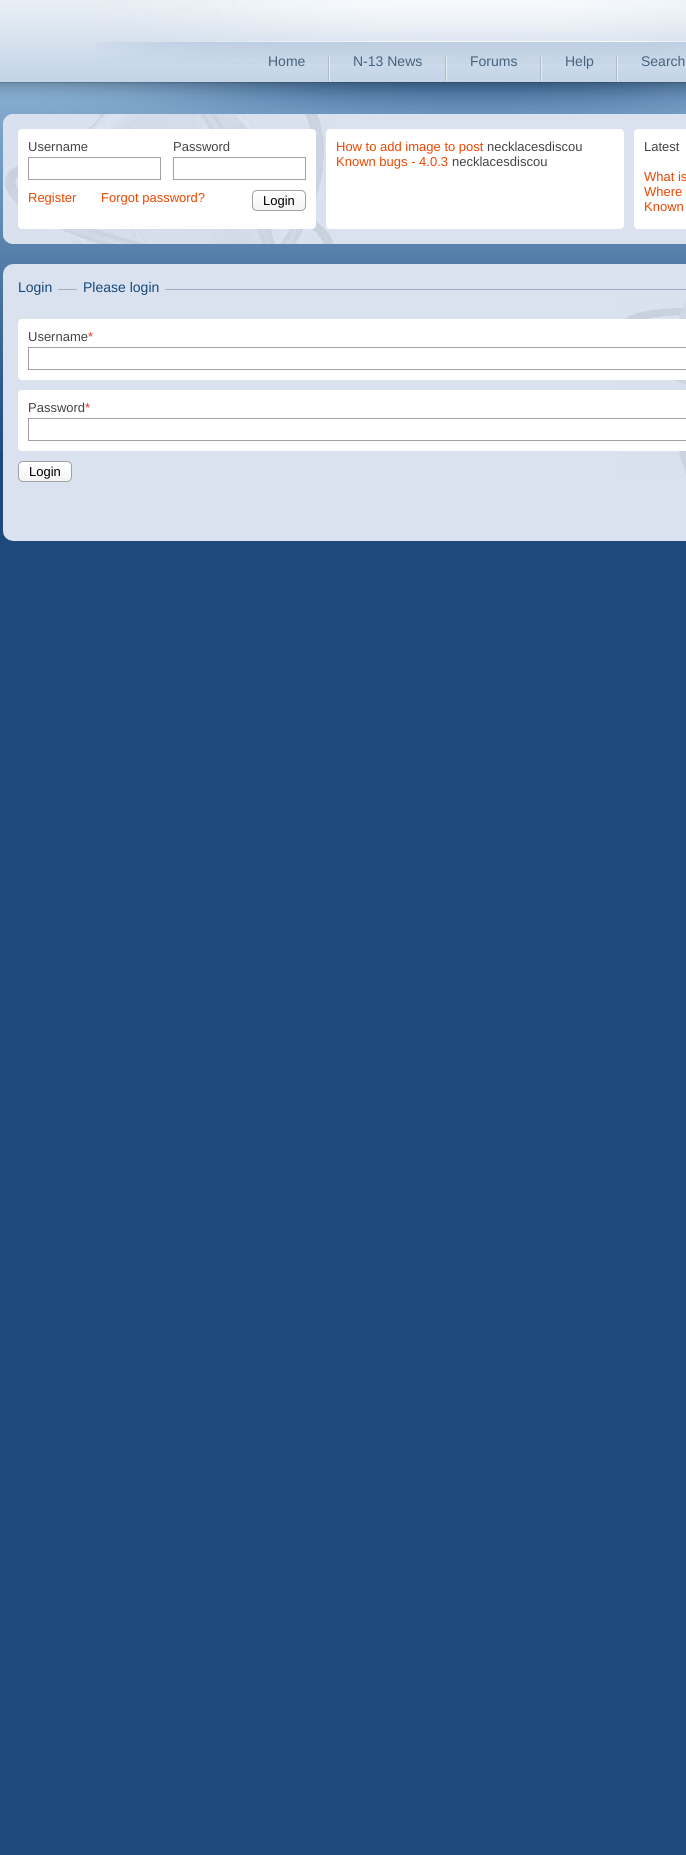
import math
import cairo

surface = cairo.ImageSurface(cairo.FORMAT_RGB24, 686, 1855)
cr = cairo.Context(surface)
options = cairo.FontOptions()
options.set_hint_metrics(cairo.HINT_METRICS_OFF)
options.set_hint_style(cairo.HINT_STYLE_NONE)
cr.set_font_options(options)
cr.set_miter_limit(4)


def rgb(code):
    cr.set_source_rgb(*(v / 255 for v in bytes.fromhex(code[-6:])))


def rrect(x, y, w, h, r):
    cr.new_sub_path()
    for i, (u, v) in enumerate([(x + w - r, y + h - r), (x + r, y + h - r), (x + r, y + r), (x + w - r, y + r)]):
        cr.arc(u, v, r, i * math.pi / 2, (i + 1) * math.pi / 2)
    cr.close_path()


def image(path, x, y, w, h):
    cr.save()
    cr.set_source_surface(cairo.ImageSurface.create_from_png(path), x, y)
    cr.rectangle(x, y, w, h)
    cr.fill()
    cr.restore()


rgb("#1e497d")
cr.paint()
image("img/1.png", 0, 0, 686, 452)
image("img/2.png", 96, 0, 590, 64)
image("img/3.png", 328, 55, 2, 27)
image("img/3.png", 445, 55, 2, 27)
image("img/3.png", 540, 55, 2, 27)
image("img/3.png", 616, 55, 2, 27)
image("img/4.png", 40, 82, 646, 32)
image("img/5.png", 3, 114, 683, 130)
image("img/6.png", 3, 114, 333, 130)
rgb("#ffffff")
rrect(18, 129, 298, 100, 4)
cr.fill()
cr.rectangle(28.5, 157.5, 132, 22)
rgb("#a1a1a1")
cr.set_line_width(1)
cr.stroke()
cr.rectangle(173.5, 157.5, 132, 22)
cr.stroke()
image("img/7.png", 252, 190, 54, 20)
rrect(252.5, 190.5, 53, 20, 4.5)
cr.stroke()
rgb("#ffffff")
rrect(326, 129, 298, 100, 4)
cr.fill()
rrect(634, 129, 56, 100, 4)
cr.fill()
image("img/8.png", 3, 264, 683, 277)
image("img/9.png", 617, 302, 69, 172)
rgb("#a1b1c8")
cr.rectangle(58, 289, 628, 1)
cr.fill()
rgb("#dae2ef")
cr.rectangle(77, 289, 88, 1)
cr.fill()
rgb("#ffffff")
rrect(18, 319, 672, 61, 4)
cr.fill()
cr.rectangle(28.5, 347.5, 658, 22)
rgb("#a1a1a1")
cr.stroke()
rgb("#ffffff")
rrect(18, 390, 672, 61, 4)
cr.fill()
cr.rectangle(28.5, 418.5, 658, 22)
rgb("#a1a1a1")
cr.stroke()
image("img/10.png", 18, 462, 54, 20)
rrect(18.5, 461.5, 53, 20, 4.5)
cr.stroke()
cr.select_font_face("Liberation Sans")
cr.set_font_size(14)
rgb("#47627e")
for x, y, s in [
    (268, 66, "Home"),
    (353, 66, "N-13 News"),
    (470, 66, "Forums"),
    (565, 66, "Help"),
    (641, 66, "Search"),
]:
    cr.move_to(x, y)
    cr.show_text(s)
cr.set_font_size(13)
rgb("#444444")
cr.move_to(28, 151)
cr.show_text("Username")
cr.move_to(173, 151)
cr.show_text("Password")
rgb("#000000")
cr.move_to(263, 205)
cr.show_text("Login")
rgb("#eb4700")
for x, y, s in [
    (28, 202, "Register"),
    (101, 202, "Forgot password?"),
    (336, 151, "How to add image to post"),
]:
    cr.move_to(x, y)
    cr.show_text(s)
rgb("#444444")
cr.move_to(487, 151)
cr.show_text("necklacesdiscou")
rgb("#eb4700")
cr.move_to(336, 166)
cr.show_text("Known bugs - 4.0.3")
rgb("#444444")
cr.move_to(452, 166)
cr.show_text("necklacesdiscou")
cr.move_to(644, 151)
cr.show_text("Latest")
rgb("#eb4700")
for x, y, s in [
    (644, 181, "What is"),
    (644, 196, "Where"),
    (644, 211, "Known"),
]:
    cr.move_to(x, y)
    cr.show_text(s)
cr.set_font_size(14)
rgb("#15497c")
cr.move_to(18, 292)
cr.show_text("Login")
cr.move_to(83, 292)
cr.show_text("Please login")
cr.set_font_size(13)
rgb("#444444")
cr.move_to(28, 341)
cr.show_text("Username")
rgb("#ee3322")
cr.move_to(88, 341)
cr.show_text("*")
rgb("#444444")
cr.move_to(28, 412)
cr.show_text("Password")
rgb("#ee3322")
cr.move_to(85, 412)
cr.show_text("*")
rgb("#000000")
cr.move_to(29, 476)
cr.show_text("Login")
surface.write_to_png("page.png")
